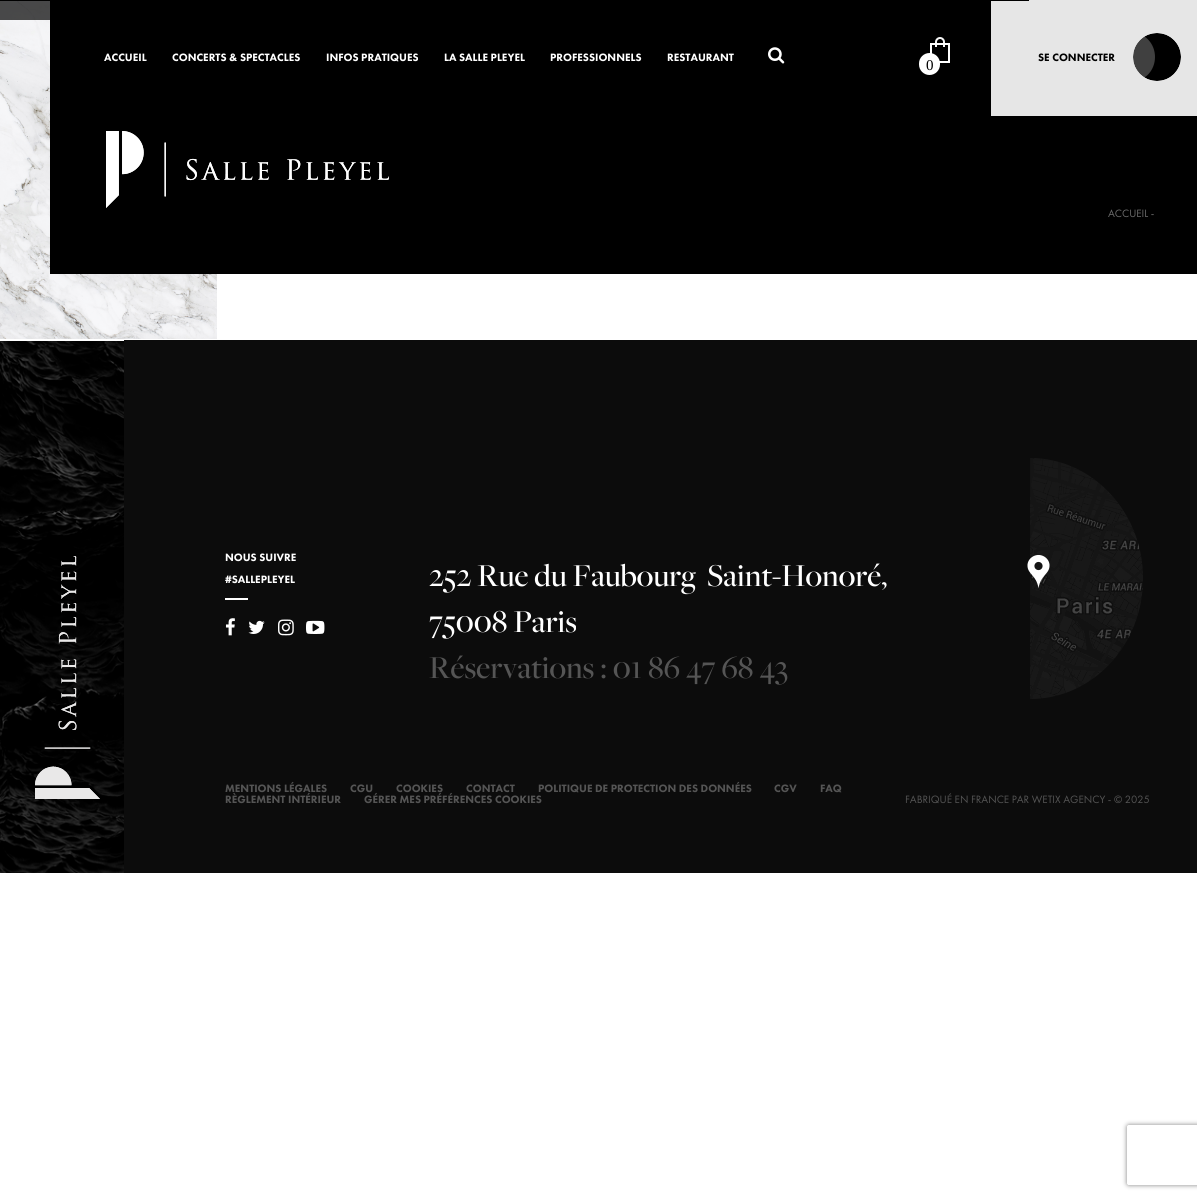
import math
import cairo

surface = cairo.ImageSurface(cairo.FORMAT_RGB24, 1197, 1199)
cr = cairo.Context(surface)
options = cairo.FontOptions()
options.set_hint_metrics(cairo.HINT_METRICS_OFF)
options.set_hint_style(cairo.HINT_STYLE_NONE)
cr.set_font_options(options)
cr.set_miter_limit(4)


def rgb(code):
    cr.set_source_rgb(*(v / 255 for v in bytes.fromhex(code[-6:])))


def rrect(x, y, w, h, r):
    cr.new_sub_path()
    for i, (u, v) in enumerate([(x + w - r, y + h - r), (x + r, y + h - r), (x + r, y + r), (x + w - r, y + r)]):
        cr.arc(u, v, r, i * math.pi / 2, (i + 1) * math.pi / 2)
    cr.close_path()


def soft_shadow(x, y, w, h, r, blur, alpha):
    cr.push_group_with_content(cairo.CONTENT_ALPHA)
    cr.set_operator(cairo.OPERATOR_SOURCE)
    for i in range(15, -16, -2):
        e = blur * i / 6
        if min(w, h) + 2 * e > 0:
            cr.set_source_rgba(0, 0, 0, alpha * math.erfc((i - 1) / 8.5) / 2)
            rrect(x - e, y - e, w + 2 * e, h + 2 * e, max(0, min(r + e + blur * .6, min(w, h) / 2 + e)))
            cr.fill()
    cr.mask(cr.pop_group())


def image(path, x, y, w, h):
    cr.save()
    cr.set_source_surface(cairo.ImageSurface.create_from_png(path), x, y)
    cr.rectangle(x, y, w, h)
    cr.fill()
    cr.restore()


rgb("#ffffff")
cr.paint()
rgb("#000000")
cr.rectangle(0, 0, 1029, 1)
cr.fill()
rgb("#e6e6e6")
cr.rectangle(1029, 0, 168, 1)
cr.fill()
image("img/1.png", 0, 1, 217, 338)
cr.set_source_rgba(0, 0, 0, 0.7)
cr.rectangle(0, 1, 50, 19)
cr.fill()
rgb("#000000")
cr.rectangle(50, 1, 1147, 273)
cr.fill()
image("img/2.png", 768, 47, 17, 17)
image("img/3.png", 930, 37, 20, 26)
rgb("#ffffff")
rrect(919, 53, 21, 22, 10.5)
cr.fill()
rgb("#e6e6e6")
cr.rectangle(991, 1, 206, 115)
cr.fill()
image("img/4.png", 1133, 33, 48, 48)
image("img/5.png", 106, 131, 283, 77)
image("img/6.png", 0, 341, 124, 532)
image("img/7.png", 35, 556, 65, 243)
rgb("#0c0c0c")
cr.rectangle(124, 340, 1073, 533)
cr.fill()
rgb("#ffffff")
cr.rectangle(225, 598, 23, 2)
cr.fill()
image("img/8.png", 225, 618, 10, 18)
image("img/9.png", 248, 620, 17, 14)
image("img/10.png", 278, 619, 16, 17)
image("img/11.png", 306, 620, 19, 14)
image("img/12.png", 1030, 458, 113, 241)
image("img/13.png", 1027, 555, 23, 33)
cr.save()
cr.set_fill_rule(cairo.FILL_RULE_EVEN_ODD)
cr.new_path()
cr.move_to(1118, 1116)
cr.line_to(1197, 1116)
cr.line_to(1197, 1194)
cr.line_to(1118, 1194)
cr.close_path()
cr.move_to(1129, 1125)
cr.line_to(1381, 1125)
cr.curve_to(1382, 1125, 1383, 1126, 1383, 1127)
cr.line_to(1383, 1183)
cr.curve_to(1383, 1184, 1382, 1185, 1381, 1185)
cr.line_to(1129, 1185)
cr.curve_to(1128, 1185, 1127, 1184, 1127, 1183)
cr.line_to(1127, 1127)
cr.curve_to(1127, 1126, 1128, 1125, 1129, 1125)
cr.close_path()
cr.clip()
rgb("#808080")
soft_shadow(1127, 1125, 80, 60, 2, 2.5, 1)
cr.restore()
cr.select_font_face("Futura PT Black")
cr.set_font_size(11.05)
for x, y, s in [
    (104, 61, "ACCUEIL"),
    (172, 61, "CONCERTS & SPECTACLES"),
    (326, 61, "INFOS PRATIQUES"),
    (444, 61, "LA SALLE PLEYEL"),
    (550, 61, "PROFESSIONNELS"),
    (667, 61, "RESTAURANT"),
]:
    cr.move_to(x, y)
    cr.show_text(s)
cr.select_font_face("Liberation Serif")
cr.set_font_size(15)
rgb("#000000")
cr.move_to(926, 70)
cr.show_text("0")
cr.select_font_face("Futura PT Black")
cr.set_font_size(11.05)
cr.move_to(1038, 61)
cr.show_text("SE CONNECTER")
cr.select_font_face("Futura PT")
rgb("#6d6d6d")
cr.move_to(1108, 217)
cr.show_text("ACCUEIL -")
cr.select_font_face("Futura PT Black")
rgb("#ffffff")
cr.move_to(225, 561)
cr.show_text("NOUS SUIVRE")
cr.move_to(225, 583)
cr.show_text("#SALLEPLEYEL")
cr.select_font_face("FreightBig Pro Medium")
cr.set_font_size(33.1)
for x, y, s in [
    (429, 586, "252 Rue du Faubourg"),
    (707, 586, "Saint-Honoré,"),
    (429, 632, "75008 Paris"),
]:
    cr.move_to(x, y)
    cr.show_text(s)
rgb("#555555")
cr.move_to(429, 678)
cr.show_text("Réservations : 01 86 47 68 43")
cr.select_font_face("Futura PT Black")
cr.set_font_size(11.05)
for x, y, s in [
    (225, 792, "MENTIONS LÉGALES"),
    (350, 792, "CGU"),
    (396, 792, "COOKIES"),
    (466, 792, "CONTACT"),
    (538, 792, "POLITIQUE DE PROTECTION DES DONNÉES"),
    (774, 792, "CGV"),
    (820, 792, "FAQ"),
    (225, 803, "RÈGLEMENT INTÉRIEUR"),
    (364, 803, "GÉRER MES PRÉFÉRENCES COOKIES"),
]:
    cr.move_to(x, y)
    cr.show_text(s)
cr.select_font_face("Futura PT")
cr.move_to(905, 803)
cr.show_text("FABRIQUÉ EN FRANCE PAR WETIX AGENCY - © 2025")
surface.write_to_png("page.png")
